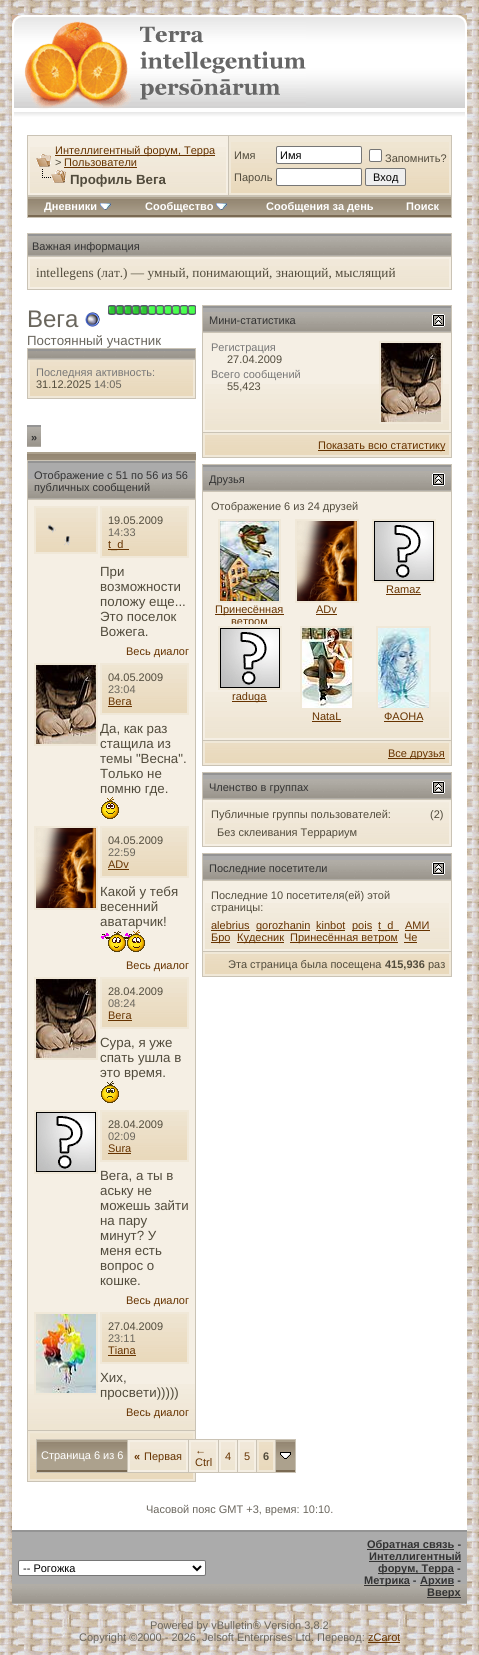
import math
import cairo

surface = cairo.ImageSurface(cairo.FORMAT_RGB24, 479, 1655)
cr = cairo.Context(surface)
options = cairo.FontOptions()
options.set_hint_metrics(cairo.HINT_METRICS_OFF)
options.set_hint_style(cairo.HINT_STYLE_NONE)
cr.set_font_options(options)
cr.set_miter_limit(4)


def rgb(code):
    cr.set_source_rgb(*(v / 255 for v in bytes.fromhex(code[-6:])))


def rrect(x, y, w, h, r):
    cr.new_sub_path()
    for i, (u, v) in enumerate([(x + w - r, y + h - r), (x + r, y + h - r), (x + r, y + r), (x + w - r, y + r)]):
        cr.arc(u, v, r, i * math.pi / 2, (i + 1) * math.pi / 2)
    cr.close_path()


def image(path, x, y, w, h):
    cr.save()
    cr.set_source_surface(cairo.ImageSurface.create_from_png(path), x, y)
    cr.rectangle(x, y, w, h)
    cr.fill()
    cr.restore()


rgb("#ffffff")
cr.paint()
image("img/1.png", 0, 0, 479, 1655)
image("img/2.png", 12, 15, 294, 95)
image("img/3.png", 306, 15, 161, 95)
image("img/4.png", 457, 15, 10, 93)
rgb("#ffffff")
cr.rectangle(465, 110, 2, 25)
cr.fill()
cr.rectangle(12, 110, 2, 25)
cr.fill()
image("img/5.png", 14, 110, 451, 25)
for x, y, w, h, color in [
    (12, 135, 455, 1395, "#ffffff"),
    (27, 135, 425, 83, "#cac3b5"),
    (30, 138, 196, 9, "#f5efe4"),
]:
    rgb(color)
    cr.rectangle(x, y, w, h)
    cr.fill()
image("img/6.png", 30, 147, 196, 46)
cr.rectangle(29, 137, 198, 57)
cr.stroke()
image("img/7.png", 36, 154, 15, 13)
rgb("#663300")
cr.rectangle(55, 155, 160, 1)
cr.fill()
cr.rectangle(64, 167, 73, 1)
cr.fill()
image("img/8.png", 42, 169, 24, 14)
rgb("#f0e8d8")
cr.rectangle(231, 138, 218, 4)
cr.fill()
image("img/9.png", 231, 142, 218, 51)
cr.rectangle(230, 137, 220, 57)
cr.stroke()
rgb("#ffffff")
rrect(276.5, 146.5, 85, 17, 1.5)
cr.fill_preserve()
rgb("#767676")
cr.set_line_width(1)
cr.stroke()
rgb("#ffffff")
rrect(369.5, 149.5, 12, 12, 1.5)
cr.fill_preserve()
rgb("#767676")
cr.stroke()
rgb("#ffffff")
rrect(276.5, 168.5, 85, 17, 1.5)
cr.fill_preserve()
rgb("#767676")
cr.stroke()
rgb("#efefef")
rrect(365.5, 168.5, 40, 17, 1.5)
cr.fill_preserve()
rgb("#767676")
cr.stroke()
image("img/10.png", 28, 197, 99, 18)
rgb("#7a6a53")
cr.rectangle(28, 215, 423, 2)
cr.fill()
image("img/11.png", 100, 203, 11, 7)
image("img/12.png", 127, 197, 118, 18)
image("img/11.png", 216, 203, 11, 7)
image("img/13.png", 245, 197, 150, 18)
image("img/14.png", 395, 197, 56, 18)
rgb("#cac3b5")
cr.rectangle(27, 233, 425, 57)
cr.fill()
image("img/15.png", 28, 236, 423, 20)
rgb("#949494")
cr.rectangle(28, 234, 423, 2)
cr.fill()
image("img/16.png", 30, 259, 419, 28)
cr.rectangle(29, 258, 421, 30)
rgb("#f5efe4")
cr.set_line_width(2)
cr.stroke()
image("img/17.png", 85, 312, 15, 15)
image("img/18.png", 108, 305, 8, 10)
image("img/18.png", 116, 305, 8, 10)
image("img/18.png", 124, 305, 8, 10)
image("img/18.png", 132, 305, 8, 10)
image("img/18.png", 140, 305, 8, 10)
image("img/19.png", 148, 305, 8, 10)
image("img/19.png", 156, 305, 8, 10)
image("img/19.png", 164, 305, 8, 10)
image("img/19.png", 172, 305, 8, 10)
image("img/19.png", 180, 305, 8, 10)
image("img/19.png", 188, 305, 8, 10)
rgb("#cac3b5")
cr.rectangle(27, 348, 169, 51)
cr.fill()
image("img/20.png", 28, 351, 167, 8)
rgb("#949494")
cr.rectangle(28, 349, 167, 2)
cr.fill()
image("img/21.png", 30, 360, 163, 36)
for x, y, w, h, color in [
    (193, 360, 2, 38, "#f0e8d8"),
    (28, 396, 167, 2, "#f0e8d8"),
    (28, 360, 2, 38, "#f0e8d8"),
]:
    rgb(color)
    cr.rectangle(x, y, w, h)
    cr.fill()
image("img/22.png", 27, 427, 14, 20)
rgb("#949494")
cr.rectangle(27, 425, 14, 2)
cr.fill()
image("img/23.png", 27, 452, 169, 8)
rgb("#cac3b5")
cr.rectangle(27, 460, 169, 1022)
cr.fill()
rgb("#ababab")
cr.rectangle(28, 463, 167, 16)
cr.fill()
image("img/24.png", 28, 479, 167, 20)
rgb("#949494")
cr.rectangle(28, 461, 167, 2)
cr.fill()
rgb("#f5efe4")
cr.rectangle(28, 500, 167, 884)
cr.fill()
image("img/25.png", 28, 1384, 167, 46)
image("img/26.png", 36, 508, 60, 44)
cr.rectangle(35, 507, 62, 46)
rgb("#f0e8d8")
cr.stroke()
image("img/27.png", 47, 524, 9, 9)
image("img/28.png", 102, 508, 85, 48)
cr.rectangle(101, 507, 87, 50)
cr.stroke()
rgb("#663300")
cr.rectangle(108, 549, 21, 1)
cr.fill()
image("img/29.png", 36, 665, 60, 79)
cr.rectangle(35, 664, 62, 81)
rgb("#f0e8d8")
cr.stroke()
image("img/28.png", 102, 665, 85, 48)
cr.rectangle(101, 664, 87, 50)
cr.stroke()
rgb("#663300")
cr.rectangle(108, 706, 24, 1)
cr.fill()
image("img/30.png", 101, 797, 18, 22)
rgb("#f0e8d8")
cr.rectangle(36, 828, 60, 15)
cr.fill()
image("img/31.png", 36, 828, 60, 80)
cr.rectangle(35, 827, 62, 82)
cr.stroke()
image("img/32.png", 36, 828, 60, 80)
image("img/28.png", 102, 828, 85, 48)
cr.rectangle(101, 827, 87, 50)
cr.stroke()
rgb("#663300")
cr.rectangle(108, 869, 21, 1)
cr.fill()
image("img/33.png", 101, 930, 44, 22)
image("img/29.png", 36, 979, 60, 79)
cr.rectangle(35, 978, 62, 81)
rgb("#f0e8d8")
cr.stroke()
image("img/28.png", 102, 979, 85, 48)
cr.rectangle(101, 978, 87, 50)
cr.stroke()
rgb("#663300")
cr.rectangle(108, 1020, 24, 1)
cr.fill()
image("img/34.png", 101, 1081, 18, 22)
image("img/35.png", 36, 1112, 60, 60)
cr.rectangle(35, 1111, 62, 62)
rgb("#f0e8d8")
cr.stroke()
image("img/28.png", 102, 1112, 85, 48)
cr.rectangle(101, 1111, 87, 50)
cr.stroke()
rgb("#663300")
cr.rectangle(108, 1153, 23, 1)
cr.fill()
image("img/36.png", 36, 1314, 60, 79)
cr.rectangle(35, 1313, 62, 81)
rgb("#f0e8d8")
cr.stroke()
image("img/28.png", 102, 1314, 85, 48)
cr.rectangle(101, 1313, 87, 50)
cr.stroke()
rgb("#663300")
cr.rectangle(108, 1355, 28, 1)
cr.fill()
image("img/37.png", 30, 1433, 163, 46)
cr.rectangle(29, 1432, 165, 48)
rgb("#f0e8d8")
cr.stroke()
rgb("#cac3b5")
cr.rectangle(36, 1439, 260, 34)
cr.fill()
image("img/38.png", 37, 1440, 90, 30)
rgb("#7a6a53")
cr.rectangle(37, 1470, 90, 2)
cr.fill()
image("img/39.png", 130, 1442, 56, 28)
cr.rectangle(129, 1441, 58, 30)
rgb("#f5efe4")
cr.stroke()
image("img/40.png", 191, 1442, 25, 28)
cr.rectangle(190, 1441, 27, 30)
cr.stroke()
image("img/41.png", 221, 1442, 14, 28)
cr.rectangle(220, 1441, 16, 30)
cr.stroke()
image("img/41.png", 240, 1442, 14, 28)
cr.rectangle(239, 1441, 16, 30)
cr.stroke()
image("img/42.png", 259, 1442, 14, 28)
cr.rectangle(258, 1441, 16, 30)
rgb("#f0e8d8")
cr.stroke()
image("img/43.png", 276, 1440, 19, 30)
rgb("#7a6a53")
cr.rectangle(276, 1470, 19, 2)
cr.fill()
image("img/44.png", 280, 1452, 11, 7)
rgb("#cac3b5")
cr.rectangle(202, 305, 250, 153)
cr.fill()
rgb("#ababab")
cr.rectangle(203, 308, 248, 4)
cr.fill()
image("img/45.png", 203, 312, 248, 20)
rgb("#949494")
cr.rectangle(203, 306, 248, 2)
cr.fill()
image("img/46.png", 432, 314, 13, 13)
rgb("#f5efe4")
cr.rectangle(205, 335, 244, 49)
cr.fill()
image("img/47.png", 205, 384, 244, 46)
cr.rectangle(204, 334, 246, 97)
cr.stroke()
image("img/29.png", 381, 343, 60, 79)
cr.rectangle(380, 342, 62, 81)
rgb("#f0e8d8")
cr.stroke()
image("img/48.png", 205, 435, 244, 20)
cr.rectangle(204, 434, 246, 22)
cr.stroke()
for x, y, w, h, color in [
    (318, 450, 127, 1, "#663300"),
    (202, 464, 250, 302, "#cac3b5"),
    (203, 467, 248, 4, "#ababab"),
]:
    rgb(color)
    cr.rectangle(x, y, w, h)
    cr.fill()
image("img/45.png", 203, 471, 248, 20)
rgb("#949494")
cr.rectangle(203, 465, 248, 2)
cr.fill()
image("img/46.png", 432, 473, 13, 13)
rgb("#f5efe4")
cr.rectangle(205, 494, 244, 198)
cr.fill()
image("img/47.png", 205, 692, 244, 46)
cr.rectangle(204, 493, 246, 246)
cr.stroke()
image("img/35.png", 374, 521, 60, 60)
cr.rectangle(373, 520, 62, 62)
rgb("#f0e8d8")
cr.stroke()
rgb("#663300")
cr.rectangle(386, 594, 35, 1)
cr.fill()
image("img/49.png", 220, 521, 59, 80)
cr.rectangle(219, 520, 61, 82)
rgb("#f0e8d8")
cr.stroke()
rgb("#663300")
cr.rectangle(215, 614, 69, 1)
cr.fill()
rgb("#f0e8d8")
cr.rectangle(297, 521, 60, 15)
cr.fill()
image("img/31.png", 297, 521, 60, 80)
cr.rectangle(296, 520, 62, 82)
cr.stroke()
image("img/32.png", 297, 521, 60, 80)
rgb("#663300")
cr.rectangle(316, 614, 21, 1)
cr.fill()
image("img/35.png", 220, 628, 60, 60)
cr.rectangle(219, 627, 62, 62)
rgb("#f0e8d8")
cr.stroke()
rgb("#663300")
cr.rectangle(232, 701, 35, 1)
cr.fill()
image("img/50.png", 302, 628, 50, 80)
cr.rectangle(301, 627, 52, 82)
rgb("#f0e8d8")
cr.stroke()
rgb("#663300")
cr.rectangle(312, 721, 29, 1)
cr.fill()
image("img/51.png", 378, 628, 51, 80)
cr.rectangle(377, 627, 53, 82)
rgb("#f0e8d8")
cr.stroke()
rgb("#663300")
cr.rectangle(384, 721, 39, 1)
cr.fill()
image("img/48.png", 205, 743, 244, 20)
cr.rectangle(204, 742, 246, 22)
rgb("#f0e8d8")
cr.stroke()
for x, y, w, h, color in [
    (388, 758, 57, 1, "#663300"),
    (202, 772, 250, 75, "#cac3b5"),
    (203, 775, 248, 4, "#ababab"),
]:
    rgb(color)
    cr.rectangle(x, y, w, h)
    cr.fill()
image("img/45.png", 203, 779, 248, 20)
rgb("#949494")
cr.rectangle(203, 773, 248, 2)
cr.fill()
image("img/46.png", 432, 781, 13, 13)
image("img/52.png", 205, 802, 244, 42)
cr.rectangle(204, 801, 246, 44)
rgb("#f5efe4")
cr.stroke()
rgb("#cac3b5")
cr.rectangle(202, 853, 250, 124)
cr.fill()
rgb("#ababab")
cr.rectangle(203, 856, 248, 4)
cr.fill()
image("img/45.png", 203, 860, 248, 20)
rgb("#949494")
cr.rectangle(203, 854, 248, 2)
cr.fill()
image("img/46.png", 432, 862, 13, 13)
rgb("#f5efe4")
cr.rectangle(205, 883, 244, 20)
cr.fill()
image("img/47.png", 205, 903, 244, 46)
cr.rectangle(204, 882, 246, 68)
cr.stroke()
for x, y, w, h, color in [
    (211, 930, 39, 1, "#663300"),
    (256, 930, 54, 1, "#663300"),
    (316, 930, 29, 1, "#663300"),
    (352, 930, 20, 1, "#663300"),
    (378, 930, 21, 1, "#663300"),
    (405, 930, 25, 1, "#663300"),
    (211, 942, 19, 1, "#663300"),
    (237, 942, 47, 1, "#663300"),
    (290, 942, 108, 1, "#663300"),
    (404, 942, 13, 1, "#663300"),
]:
    rgb(color)
    cr.rectangle(x, y, w, h)
    cr.fill()
image("img/48.png", 205, 954, 244, 20)
cr.rectangle(204, 953, 246, 22)
rgb("#f0e8d8")
cr.stroke()
rgb("#ababab")
cr.rectangle(12, 1532, 455, 52)
cr.fill()
image("img/53.png", 12, 1584, 200, 20)
rgb("#949494")
cr.rectangle(12, 1530, 455, 2)
cr.fill()
rgb("#ffffff")
rrect(18.5, 1560.5, 187, 15, 1.5)
cr.fill_preserve()
rgb("#767676")
cr.set_line_width(1)
cr.stroke()
cr.new_path()
cr.move_to(193, 1566)
cr.line_to(197, 1570)
cr.line_to(201, 1566)
rgb("#000000")
cr.set_line_width(2)
cr.stroke()
image("img/54.png", 325, 1584, 142, 20)
for x, y, w, h, color in [
    (367, 1549, 87, 1, "#333333"),
    (369, 1561, 92, 1, "#333333"),
    (378, 1573, 76, 1, "#333333"),
    (364, 1585, 46, 1, "#333333"),
    (420, 1585, 34, 1, "#333333"),
    (427, 1597, 34, 1, "#333333"),
]:
    rgb(color)
    cr.rectangle(x, y, w, h)
    cr.fill()
image("img/55.png", 212, 1584, 113, 20)
rgb("#663300")
cr.rectangle(368, 1642, 32, 1)
cr.fill()
cr.select_font_face("Liberation Sans")
cr.set_font_size(11)
cr.move_to(55, 154)
cr.show_text("Интеллигентный форум, Терра")
rgb("#514b3c")
cr.move_to(55, 166)
cr.show_text(">")
rgb("#663300")
cr.move_to(64, 166)
cr.show_text("Пользователи")
cr.select_font_face("Liberation Sans", cairo.FONT_SLANT_NORMAL, cairo.FONT_WEIGHT_BOLD)
cr.set_font_size(13.3)
rgb("#514b3c")
cr.move_to(70, 184)
cr.show_text("Профиль Вега")
cr.select_font_face("Liberation Sans")
cr.set_font_size(11)
cr.move_to(234, 159)
cr.show_text("Имя")
rgb("#000000")
cr.move_to(280, 159)
cr.show_text("Имя")
rgb("#514b3c")
cr.move_to(385, 162)
cr.show_text("Запомнить?")
cr.move_to(234, 181)
cr.show_text("Пароль")
rgb("#000000")
cr.move_to(373, 181)
cr.show_text("Вход")
cr.select_font_face("Liberation Sans", cairo.FONT_SLANT_NORMAL, cairo.FONT_WEIGHT_BOLD)
rgb("#ffffff")
for x, y, s in [
    (44, 210, "Дневники"),
    (145, 210, "Сообщество"),
    (266, 210, "Сообщения за день"),
    (406, 210, "Поиск"),
]:
    cr.move_to(x, y)
    cr.show_text(s)
cr.select_font_face("Liberation Sans")
rgb("#333333")
cr.move_to(32, 250)
cr.show_text("Важная информация")
cr.select_font_face("Liberation Serif")
cr.set_font_size(13.3)
rgb("#514b3c")
cr.move_to(36, 277)
cr.show_text("intellegens (лат.) — умный, понимающий, знающий, мыслящий")
cr.select_font_face("Liberation Sans")
cr.set_font_size(24)
rgb("#6a665d")
cr.move_to(27, 327)
cr.show_text("Вега")
cr.set_font_size(13.3)
cr.move_to(27, 345)
cr.show_text("Постоянный участник")
cr.set_font_size(11)
rgb("#777777")
cr.move_to(36, 376)
cr.show_text("Последняя активность:")
rgb("#514b3c")
cr.move_to(36, 388)
cr.show_text("31.12.2025")
rgb("#6a665d")
cr.move_to(94, 388)
cr.show_text("14:05")
cr.select_font_face("Liberation Sans", cairo.FONT_SLANT_NORMAL, cairo.FONT_WEIGHT_BOLD)
rgb("#333333")
cr.move_to(31, 441)
cr.show_text("»")
cr.select_font_face("Liberation Sans")
cr.move_to(34, 479)
cr.show_text("Отображение с 51 по 56 из 56")
cr.move_to(34, 491)
cr.show_text("публичных сообщений")
rgb("#514b3c")
cr.move_to(108, 524)
cr.show_text("19.05.2009")
rgb("#6a665d")
cr.move_to(108, 536)
cr.show_text("14:33")
rgb("#663300")
cr.move_to(108, 548)
cr.show_text("t_d")
cr.set_font_size(13.3)
rgb("#514b3c")
for x, y, s in [
    (100, 576, "При"),
    (100, 591, "возможности"),
    (100, 606, "положу еще..."),
    (100, 621, "Это поселок"),
    (100, 636, "Вожега."),
]:
    cr.move_to(x, y)
    cr.show_text(s)
cr.set_font_size(11)
rgb("#663300")
cr.move_to(126, 655)
cr.show_text("Весь диалог")
rgb("#514b3c")
cr.move_to(108, 681)
cr.show_text("04.05.2009")
rgb("#6a665d")
cr.move_to(108, 693)
cr.show_text("23:04")
rgb("#663300")
cr.move_to(108, 705)
cr.show_text("Вега")
cr.set_font_size(13.3)
rgb("#514b3c")
for x, y, s in [
    (100, 733, "Да, как раз"),
    (100, 748, "стащила из"),
    (100, 763, "темы \"Весна\"."),
    (100, 778, "Только не"),
    (100, 793, "помню где."),
]:
    cr.move_to(x, y)
    cr.show_text(s)
cr.set_font_size(11)
cr.move_to(108, 844)
cr.show_text("04.05.2009")
rgb("#6a665d")
cr.move_to(108, 856)
cr.show_text("22:59")
rgb("#663300")
cr.move_to(108, 868)
cr.show_text("ADv")
cr.set_font_size(13.3)
rgb("#514b3c")
for x, y, s in [
    (100, 896, "Какой у тебя"),
    (100, 911, "весенний"),
    (100, 926, "аватарчик!"),
]:
    cr.move_to(x, y)
    cr.show_text(s)
cr.set_font_size(11)
rgb("#663300")
cr.move_to(126, 969)
cr.show_text("Весь диалог")
rgb("#514b3c")
cr.move_to(108, 995)
cr.show_text("28.04.2009")
rgb("#6a665d")
cr.move_to(108, 1007)
cr.show_text("08:24")
rgb("#663300")
cr.move_to(108, 1019)
cr.show_text("Вега")
cr.set_font_size(13.3)
rgb("#514b3c")
for x, y, s in [
    (100, 1047, "Сура, я уже"),
    (100, 1062, "спать ушла в"),
    (100, 1077, "это время."),
]:
    cr.move_to(x, y)
    cr.show_text(s)
cr.set_font_size(11)
cr.move_to(108, 1128)
cr.show_text("28.04.2009")
rgb("#6a665d")
cr.move_to(108, 1140)
cr.show_text("02:09")
rgb("#663300")
cr.move_to(108, 1152)
cr.show_text("Sura")
cr.set_font_size(13.3)
rgb("#514b3c")
for x, y, s in [
    (100, 1180, "Вега, а ты в"),
    (100, 1195, "аську не"),
    (100, 1210, "можешь зайти"),
    (100, 1225, "на пару"),
    (100, 1240, "минут? У"),
    (100, 1255, "меня есть"),
    (100, 1270, "вопрос о"),
    (100, 1285, "кошке."),
]:
    cr.move_to(x, y)
    cr.show_text(s)
cr.set_font_size(11)
rgb("#663300")
cr.move_to(126, 1304)
cr.show_text("Весь диалог")
rgb("#514b3c")
cr.move_to(108, 1330)
cr.show_text("27.04.2009")
rgb("#6a665d")
cr.move_to(108, 1342)
cr.show_text("23:11")
rgb("#663300")
cr.move_to(108, 1354)
cr.show_text("Tiana")
cr.set_font_size(13.3)
rgb("#514b3c")
cr.move_to(100, 1382)
cr.show_text("Хих,")
cr.move_to(100, 1397)
cr.show_text("просвети)))))")
cr.set_font_size(11)
rgb("#663300")
cr.move_to(126, 1416)
cr.show_text("Весь диалог")
rgb("#ffffff")
cr.move_to(41, 1459)
cr.show_text("Страница 6 из 6")
cr.select_font_face("Liberation Sans", cairo.FONT_SLANT_NORMAL, cairo.FONT_WEIGHT_BOLD)
rgb("#663300")
cr.move_to(134, 1460)
cr.show_text("«")
cr.select_font_face("Liberation Sans")
for x, y, s in [
    (144, 1460, "Первая"),
    (195, 1454, "←"),
    (195, 1466, "Ctrl"),
    (225, 1460, "4"),
    (244, 1460, "5"),
]:
    cr.move_to(x, y)
    cr.show_text(s)
cr.select_font_face("Liberation Sans", cairo.FONT_SLANT_NORMAL, cairo.FONT_WEIGHT_BOLD)
rgb("#514b3c")
cr.move_to(263, 1460)
cr.show_text("6")
cr.select_font_face("Liberation Sans")
rgb("#333333")
cr.move_to(209, 324)
cr.show_text("Мини-статистика")
rgb("#777777")
cr.move_to(211, 351)
cr.show_text("Регистрация")
rgb("#514b3c")
cr.move_to(227, 363)
cr.show_text("27.04.2009")
rgb("#777777")
cr.move_to(211, 378)
cr.show_text("Всего сообщений")
rgb("#514b3c")
cr.move_to(227, 390)
cr.show_text("55,423")
rgb("#663300")
cr.move_to(318, 449)
cr.show_text("Показать всю статистику")
rgb("#333333")
cr.move_to(209, 483)
cr.show_text("Друзья")
rgb("#514b3c")
cr.move_to(211, 510)
cr.show_text("Отображение 6 из 24 друзей")
rgb("#663300")
cr.move_to(386, 593)
cr.show_text("Ramaz")
cr.move_to(215, 613)
cr.show_text("Принесённая")
cr.save()
cr.rectangle(212, 519, 75, 105)
cr.clip()
cr.move_to(231, 625)
cr.show_text("ветром")
cr.restore()
for x, y, s in [
    (316, 613, "ADv"),
    (232, 700, "raduga"),
    (312, 720, "NataL"),
    (384, 720, "ФАОНА"),
    (388, 757, "Все друзья"),
]:
    cr.move_to(x, y)
    cr.show_text(s)
rgb("#333333")
cr.move_to(209, 791)
cr.show_text("Членство в группах")
rgb("#514b3c")
for x, y, s in [
    (211, 818, "Публичные группы пользователей:"),
    (430, 818, "(2)"),
    (217, 836, "Без склеивания Террариум"),
]:
    cr.move_to(x, y)
    cr.show_text(s)
rgb("#333333")
cr.move_to(209, 872)
cr.show_text("Последние посетители")
rgb("#514b3c")
cr.move_to(211, 899)
cr.show_text("Последние 10 посетителя(ей) этой")
cr.move_to(211, 911)
cr.show_text("страницы:")
rgb("#663300")
for x, y, s in [
    (211, 929, "alebrius"),
    (256, 929, "gorozhanin"),
    (316, 929, "kinbot"),
    (352, 929, "pois"),
    (378, 929, "t_d"),
    (405, 929, "АМИ"),
    (211, 941, "Бро"),
    (237, 941, "Кудесник"),
    (290, 941, "Принесённая ветром"),
    (404, 941, "Че"),
]:
    cr.move_to(x, y)
    cr.show_text(s)
rgb("#514b3c")
cr.move_to(228, 968)
cr.show_text("Эта страница была посещена")
cr.select_font_face("Liberation Sans", cairo.FONT_SLANT_NORMAL, cairo.FONT_WEIGHT_BOLD)
cr.move_to(385, 968)
cr.show_text("415,936")
cr.select_font_face("Liberation Sans")
cr.move_to(428, 968)
cr.show_text("раз")
rgb("#6a665d")
cr.move_to(146, 1513)
cr.show_text("Часовой пояс GMT +3, время: 10:10.")
rgb("#000000")
cr.move_to(23, 1572)
cr.show_text("-- Рогожка")
cr.select_font_face("Liberation Sans", cairo.FONT_SLANT_NORMAL, cairo.FONT_WEIGHT_BOLD)
rgb("#333333")
for x, y, s in [
    (367, 1548, "Обратная связь -"),
    (369, 1560, "Интеллигентный"),
    (378, 1572, "форум, Терра -"),
    (364, 1584, "Метрика -"),
    (420, 1584, "Архив -"),
    (427, 1596, "Вверх"),
]:
    cr.move_to(x, y)
    cr.show_text(s)
cr.select_font_face("Liberation Sans")
rgb("#6a665d")
cr.move_to(150, 1629)
cr.show_text("Powered by vBulletin® Version 3.8.2")
cr.move_to(79, 1641)
cr.show_text("Copyright ©2000 - 2026, Jelsoft Enterprises Ltd. Перевод:")
rgb("#663300")
cr.move_to(368, 1641)
cr.show_text("zCarot")
surface.write_to_png("page.png")
